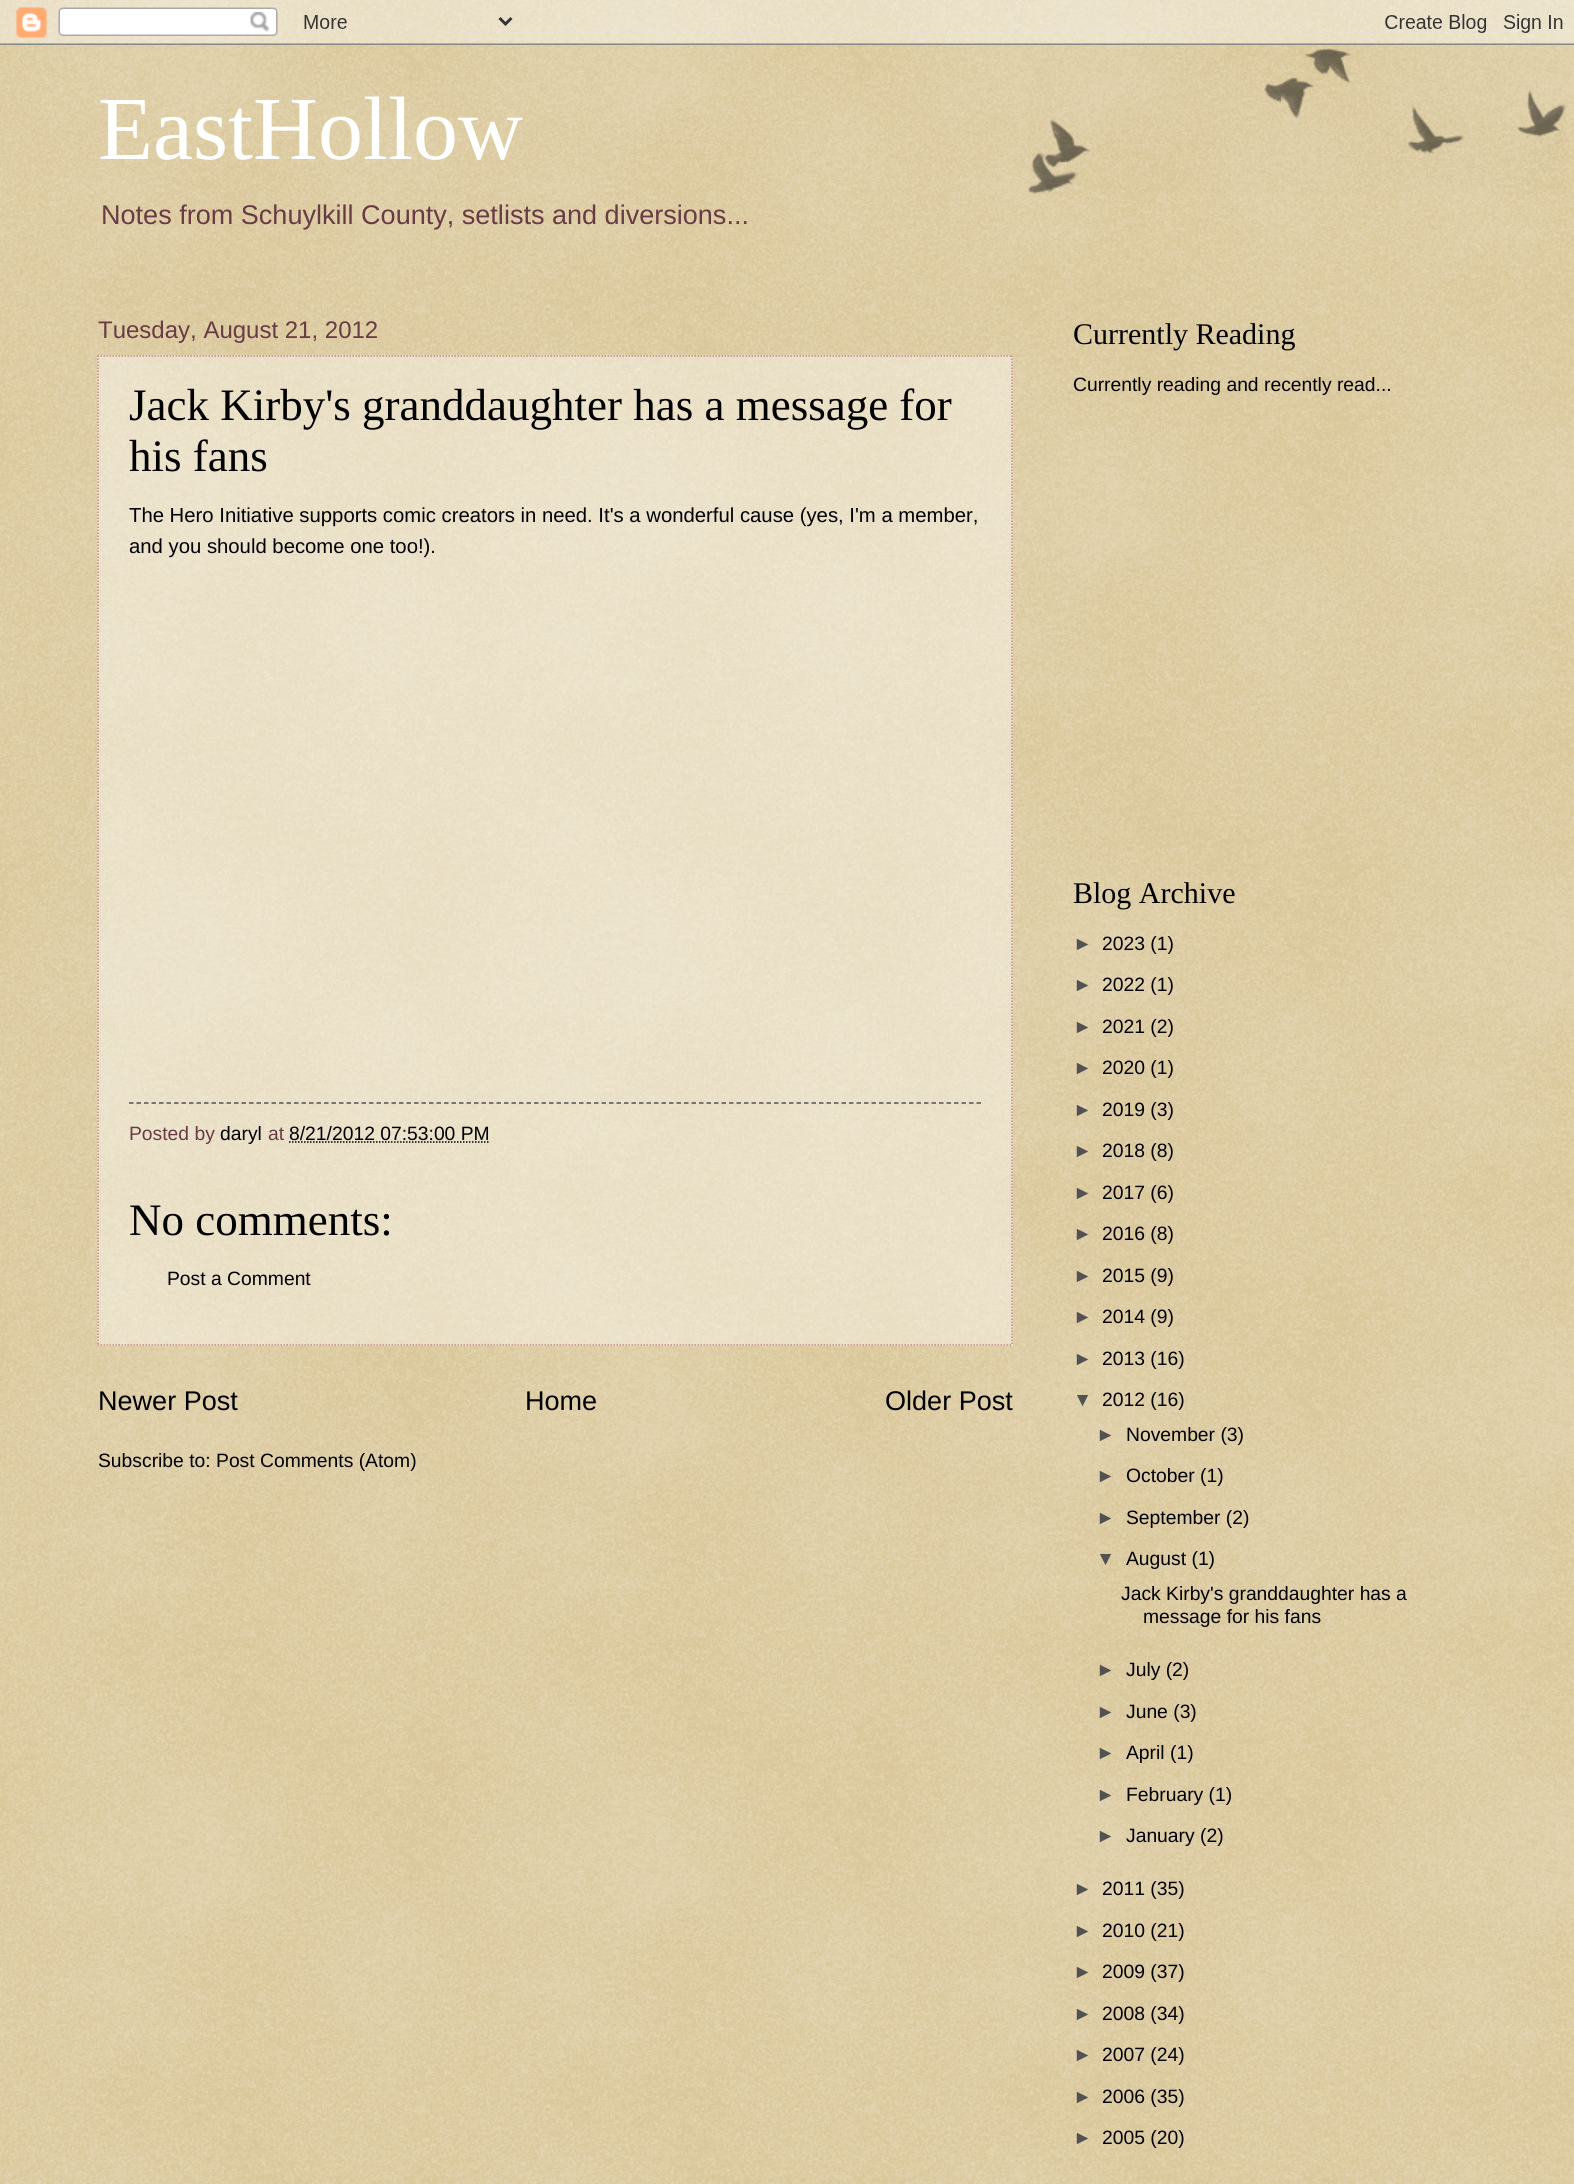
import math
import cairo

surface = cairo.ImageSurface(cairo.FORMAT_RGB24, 1574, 2184)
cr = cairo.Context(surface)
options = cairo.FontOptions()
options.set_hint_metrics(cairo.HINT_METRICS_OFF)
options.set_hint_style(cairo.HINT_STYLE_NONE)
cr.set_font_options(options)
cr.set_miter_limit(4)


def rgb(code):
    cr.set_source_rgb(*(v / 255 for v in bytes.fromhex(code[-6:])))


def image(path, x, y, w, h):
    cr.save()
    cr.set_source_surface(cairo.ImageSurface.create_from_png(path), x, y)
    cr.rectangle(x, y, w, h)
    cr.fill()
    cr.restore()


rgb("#c0a154")
cr.paint()
image("img/1.png", 0, 0, 1574, 2184)
image("img/2.png", 0, 0, 1574, 45)
image("img/3.png", 1027, 48, 540, 146)
cr.set_source_rgba(1, 1, 1, 0.4)
cr.rectangle(97, 355, 916, 991)
cr.fill()
cr.new_path()
cr.move_to(97.5, 356)
cr.line_to(1012.5, 356)
rgb("#c3888b")
cr.set_line_width(1.5)
cr.set_dash([1.5, 1.5])
cr.stroke()
cr.new_path()
cr.move_to(1012, 355.5)
cr.line_to(1012, 1345.5)
cr.stroke()
cr.new_path()
cr.move_to(97.5, 1345)
cr.line_to(1012.5, 1345)
cr.stroke()
cr.new_path()
cr.move_to(98, 355.5)
cr.line_to(98, 1345.5)
cr.stroke()
cr.new_path()
cr.move_to(129, 1103)
cr.line_to(981, 1103)
rgb("#525252")
cr.set_dash([4.5, 3])
cr.stroke()
cr.new_path()
cr.move_to(289, 1142)
cr.line_to(490, 1142)
rgb("#000000")
cr.set_dash([1.5, 1.5])
cr.stroke()
cr.select_font_face("Liberation Serif")
cr.set_font_size(90)
rgb("#ffffff")
cr.move_to(98, 159)
cr.show_text("EastHollow")
cr.select_font_face("Liberation Sans")
cr.set_font_size(27.05)
rgb("#693b45")
cr.move_to(101, 224)
cr.show_text("Notes from Schuylkill County, setlists and diversions...")
cr.set_font_size(24)
cr.move_to(98, 338)
cr.show_text("Tuesday, August 21, 2012")
cr.select_font_face("Liberation Serif")
cr.set_font_size(45)
rgb("#000000")
cr.move_to(129, 420)
cr.show_text("Jack Kirby's granddaughter has a message for")
cr.move_to(129, 471)
cr.show_text("his fans")
cr.select_font_face("Liberation Sans")
cr.set_font_size(20.3)
cr.move_to(129, 522)
cr.show_text("The Hero Initiative supports comic creators in need. It's a wonderful cause (yes, I'm a member,")
cr.move_to(129, 553)
cr.show_text("and you should become one too!).")
cr.set_font_size(19.3)
rgb("#693b45")
cr.move_to(129, 1140)
cr.show_text("Posted by")
rgb("#000000")
cr.move_to(220, 1140)
cr.show_text("daryl")
rgb("#693b45")
cr.move_to(268, 1140)
cr.show_text("at")
rgb("#000000")
cr.move_to(289, 1140)
cr.show_text("8/21/2012 07:53:00 PM")
cr.select_font_face("Liberation Serif")
cr.set_font_size(45)
cr.move_to(129, 1235)
cr.show_text("No comments:")
cr.select_font_face("Liberation Sans")
cr.set_font_size(19.3)
cr.move_to(167, 1285)
cr.show_text("Post a Comment")
cr.set_font_size(27.05)
for x, y, s in [
    (98, 1410, "Newer Post"),
    (525, 1410, "Home"),
    (885, 1410, "Older Post"),
]:
    cr.move_to(x, y)
    cr.show_text(s)
cr.set_font_size(19.3)
cr.move_to(98, 1467)
cr.show_text("Subscribe to: Post Comments (Atom)")
cr.select_font_face("Liberation Serif")
cr.set_font_size(30)
cr.move_to(1073, 344)
cr.show_text("Currently Reading")
cr.select_font_face("Liberation Sans")
cr.set_font_size(19.3)
cr.move_to(1073, 391)
cr.show_text("Currently reading and recently read...")
cr.select_font_face("Liberation Serif")
cr.set_font_size(30)
cr.move_to(1073, 903)
cr.show_text("Blog Archive")
cr.select_font_face("Liberation Sans")
cr.set_font_size(19.3)
rgb("#525252")
cr.move_to(1073, 950)
cr.show_text("►")
rgb("#000000")
cr.move_to(1102, 950)
cr.show_text("2023 (1)")
rgb("#525252")
cr.move_to(1073, 991)
cr.show_text("►")
rgb("#000000")
cr.move_to(1102, 991)
cr.show_text("2022 (1)")
rgb("#525252")
cr.move_to(1073, 1033)
cr.show_text("►")
rgb("#000000")
cr.move_to(1102, 1033)
cr.show_text("2021 (2)")
rgb("#525252")
cr.move_to(1073, 1074)
cr.show_text("►")
rgb("#000000")
cr.move_to(1102, 1074)
cr.show_text("2020 (1)")
rgb("#525252")
cr.move_to(1073, 1116)
cr.show_text("►")
rgb("#000000")
cr.move_to(1102, 1116)
cr.show_text("2019 (3)")
rgb("#525252")
cr.move_to(1073, 1157)
cr.show_text("►")
rgb("#000000")
cr.move_to(1102, 1157)
cr.show_text("2018 (8)")
rgb("#525252")
cr.move_to(1073, 1199)
cr.show_text("►")
rgb("#000000")
cr.move_to(1102, 1199)
cr.show_text("2017 (6)")
rgb("#525252")
cr.move_to(1073, 1240)
cr.show_text("►")
rgb("#000000")
cr.move_to(1102, 1240)
cr.show_text("2016 (8)")
rgb("#525252")
cr.move_to(1073, 1282)
cr.show_text("►")
rgb("#000000")
cr.move_to(1102, 1282)
cr.show_text("2015 (9)")
rgb("#525252")
cr.move_to(1073, 1323)
cr.show_text("►")
rgb("#000000")
cr.move_to(1102, 1323)
cr.show_text("2014 (9)")
rgb("#525252")
cr.move_to(1073, 1365)
cr.show_text("►")
rgb("#000000")
cr.move_to(1102, 1365)
cr.show_text("2013 (16)")
rgb("#525252")
cr.move_to(1073, 1406)
cr.show_text("▼")
rgb("#000000")
cr.move_to(1102, 1406)
cr.show_text("2012 (16)")
rgb("#525252")
cr.move_to(1096, 1441)
cr.show_text("►")
rgb("#000000")
cr.move_to(1126, 1441)
cr.show_text("November (3)")
rgb("#525252")
cr.move_to(1096, 1482)
cr.show_text("►")
rgb("#000000")
cr.move_to(1126, 1482)
cr.show_text("October (1)")
rgb("#525252")
cr.move_to(1096, 1524)
cr.show_text("►")
rgb("#000000")
cr.move_to(1126, 1524)
cr.show_text("September (2)")
rgb("#525252")
cr.move_to(1096, 1565)
cr.show_text("▼")
rgb("#000000")
for x, y, s in [
    (1126, 1565, "August (1)"),
    (1121, 1600, "Jack Kirby's granddaughter has a"),
    (1143, 1623, "message for his fans"),
]:
    cr.move_to(x, y)
    cr.show_text(s)
rgb("#525252")
cr.move_to(1096, 1676)
cr.show_text("►")
rgb("#000000")
cr.move_to(1126, 1676)
cr.show_text("July (2)")
rgb("#525252")
cr.move_to(1096, 1718)
cr.show_text("►")
rgb("#000000")
cr.move_to(1126, 1718)
cr.show_text("June (3)")
rgb("#525252")
cr.move_to(1096, 1759)
cr.show_text("►")
rgb("#000000")
cr.move_to(1126, 1759)
cr.show_text("April (1)")
rgb("#525252")
cr.move_to(1096, 1801)
cr.show_text("►")
rgb("#000000")
cr.move_to(1126, 1801)
cr.show_text("February (1)")
rgb("#525252")
cr.move_to(1096, 1842)
cr.show_text("►")
rgb("#000000")
cr.move_to(1126, 1842)
cr.show_text("January (2)")
rgb("#525252")
cr.move_to(1073, 1895)
cr.show_text("►")
rgb("#000000")
cr.move_to(1102, 1895)
cr.show_text("2011 (35)")
rgb("#525252")
cr.move_to(1073, 1937)
cr.show_text("►")
rgb("#000000")
cr.move_to(1102, 1937)
cr.show_text("2010 (21)")
rgb("#525252")
cr.move_to(1073, 1978)
cr.show_text("►")
rgb("#000000")
cr.move_to(1102, 1978)
cr.show_text("2009 (37)")
rgb("#525252")
cr.move_to(1073, 2020)
cr.show_text("►")
rgb("#000000")
cr.move_to(1102, 2020)
cr.show_text("2008 (34)")
rgb("#525252")
cr.move_to(1073, 2061)
cr.show_text("►")
rgb("#000000")
cr.move_to(1102, 2061)
cr.show_text("2007 (24)")
rgb("#525252")
cr.move_to(1073, 2103)
cr.show_text("►")
rgb("#000000")
cr.move_to(1102, 2103)
cr.show_text("2006 (35)")
rgb("#525252")
cr.move_to(1073, 2144)
cr.show_text("►")
rgb("#000000")
cr.move_to(1102, 2144)
cr.show_text("2005 (20)")
surface.write_to_png("page.png")
